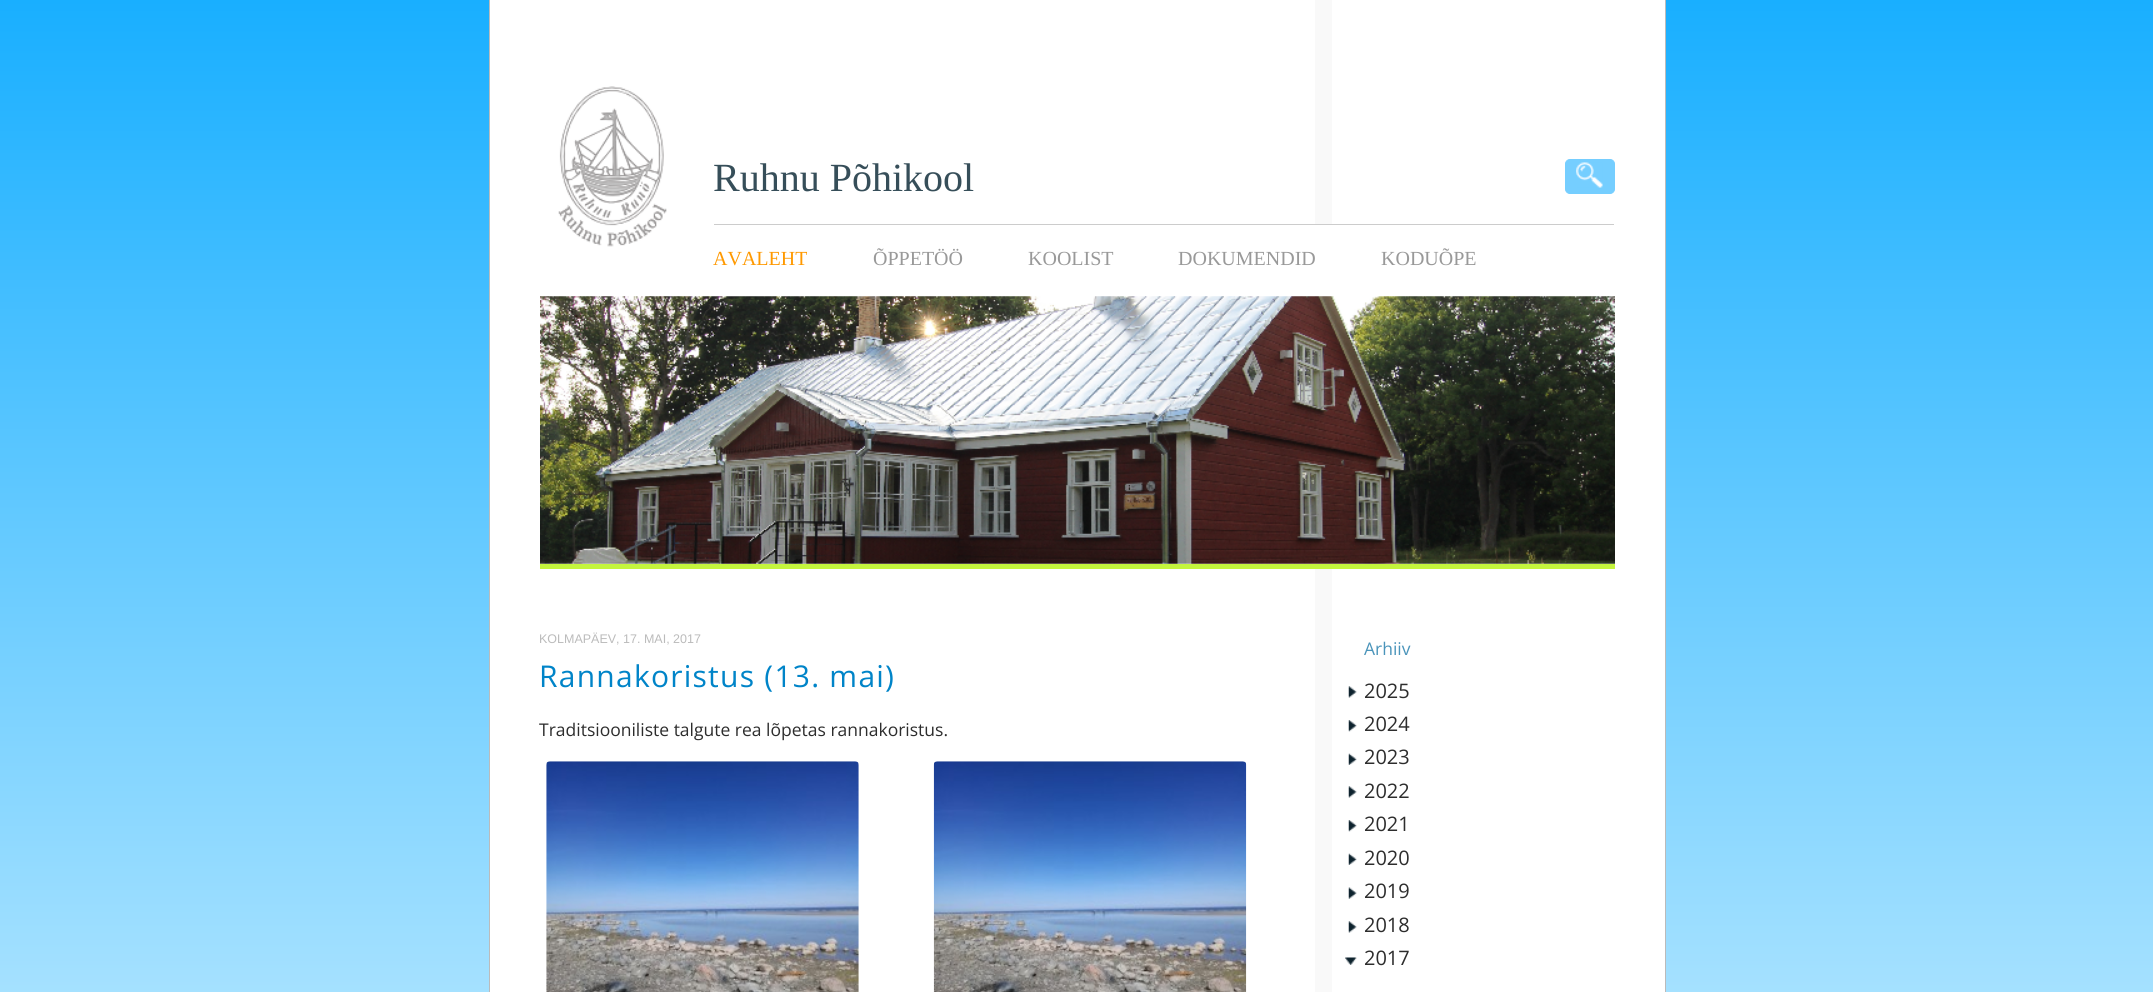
import math
import cairo

surface = cairo.ImageSurface(cairo.FORMAT_RGB24, 2153, 992)
cr = cairo.Context(surface)
options = cairo.FontOptions()
options.set_hint_metrics(cairo.HINT_METRICS_OFF)
options.set_hint_style(cairo.HINT_STYLE_NONE)
cr.set_font_options(options)
cr.set_miter_limit(4)


def rgb(code):
    cr.set_source_rgb(*(v / 255 for v in bytes.fromhex(code[-6:])))


def tracked(x, y, s, letter, word):
    cr.move_to(x, y)
    for ch in s:
        cr.show_text(ch)
        cr.rel_move_to(letter + word * (ch == ' '), 0)


def rrect(x, y, w, h, r):
    cr.new_sub_path()
    for i, (u, v) in enumerate([(x + w - r, y + h - r), (x + r, y + h - r), (x + r, y + r), (x + w - r, y + r)]):
        cr.arc(u, v, r, i * math.pi / 2, (i + 1) * math.pi / 2)
    cr.close_path()


def image(path, x, y, w, h):
    cr.save()
    cr.set_source_surface(cairo.ImageSurface.create_from_png(path), x, y)
    cr.rectangle(x, y, w, h)
    cr.fill()
    cr.restore()


rgb("#ffffff")
cr.paint()
gradient = cairo.LinearGradient(1077, 0, 1077, 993)
gradient.add_color_stop_rgba(0, 0.098, 0.686, 1, 1)
gradient.add_color_stop_rgba(1, 0.647, 0.882, 1, 1)
cr.set_source(gradient)
cr.rectangle(0, 0, 2153, 992)
cr.fill()
for x, y, w, h, color in [
    (490, 0, 1175, 992, "#ffffff"),
    (1315, 0, 17, 992, "#f9f9f9"),
    (1665, 0, 1, 992, "#bbbbbb"),
    (489, 0, 1, 992, "#bbbbbb"),
]:
    rgb(color)
    cr.rectangle(x, y, w, h)
    cr.fill()
image("img/1.png", 558, 86, 109, 161)
rgb("#75ceff")
rrect(1565.5, 159.5, 49, 34, 4.5)
cr.fill_preserve()
cr.set_line_width(1)
cr.stroke()
image("img/2.png", 1576, 162, 27, 26)
rgb("#ffffff")
cr.rectangle(1315, 225, 17, 71)
cr.fill()
rgb("#cccccc")
cr.rectangle(714, 224, 900, 1)
cr.fill()
image("img/3.png", 540, 296, 1075, 268)
rgb("#c4f53d")
cr.rectangle(540, 564, 1075, 5)
cr.fill()
image("img/4.png", 546, 761, 313, 231)
image("img/5.png", 933, 761, 314, 231)
image("img/6.png", 1348, 686, 9, 12)
image("img/7.png", 1348, 720, 9, 12)
image("img/8.png", 1348, 753, 9, 12)
image("img/6.png", 1348, 786, 9, 12)
image("img/7.png", 1348, 820, 9, 12)
image("img/8.png", 1348, 853, 9, 12)
image("img/9.png", 1348, 887, 9, 12)
image("img/6.png", 1348, 921, 9, 12)
image("img/10.png", 1345, 957, 12, 8)
cr.select_font_face("Liberation Serif")
cr.set_font_size(40)
rgb("#364e59")
cr.move_to(713, 191)
cr.show_text("Ruhnu Põhikool")
cr.set_font_size(20)
rgb("#ff9900")
cr.move_to(713, 265)
cr.show_text("AVALEHT")
rgb("#999999")
for x, y, s in [
    (873, 265, "ÕPPETÖÖ"),
    (1028, 265, "KOOLIST"),
    (1178, 265, "DOKUMENDID"),
    (1381, 265, "KODUÕPE"),
]:
    cr.move_to(x, y)
    cr.show_text(s)
cr.select_font_face("Liberation Sans")
cr.set_font_size(12.5)
rgb("#bbbbbb")
cr.move_to(539, 643)
cr.show_text("KOLMAPÄEV, 17. MAI, 2017")
cr.select_font_face("Open Sans")
cr.set_font_size(30)
rgb("#0084c8")
tracked(539, 687, "Rannakoristus (13. mai)", 1.25, 0)
cr.set_font_size(17.5)
rgb("#2d2d2d")
cr.move_to(539, 736)
cr.show_text("Traditsiooniliste talgute rea lõpetas rannakoristus.")
rgb("#4a94ba")
cr.move_to(1364, 655)
cr.show_text("Arhiiv")
cr.set_font_size(20)
rgb("#2d2d2d")
for x, y, s in [
    (1364, 698, "2025"),
    (1364, 731, "2024"),
    (1364, 764, "2023"),
    (1364, 798, "2022"),
    (1364, 831, "2021"),
    (1364, 865, "2020"),
    (1364, 898, "2019"),
    (1364, 932, "2018"),
    (1364, 965, "2017"),
]:
    cr.move_to(x, y)
    cr.show_text(s)
surface.write_to_png("page.png")
